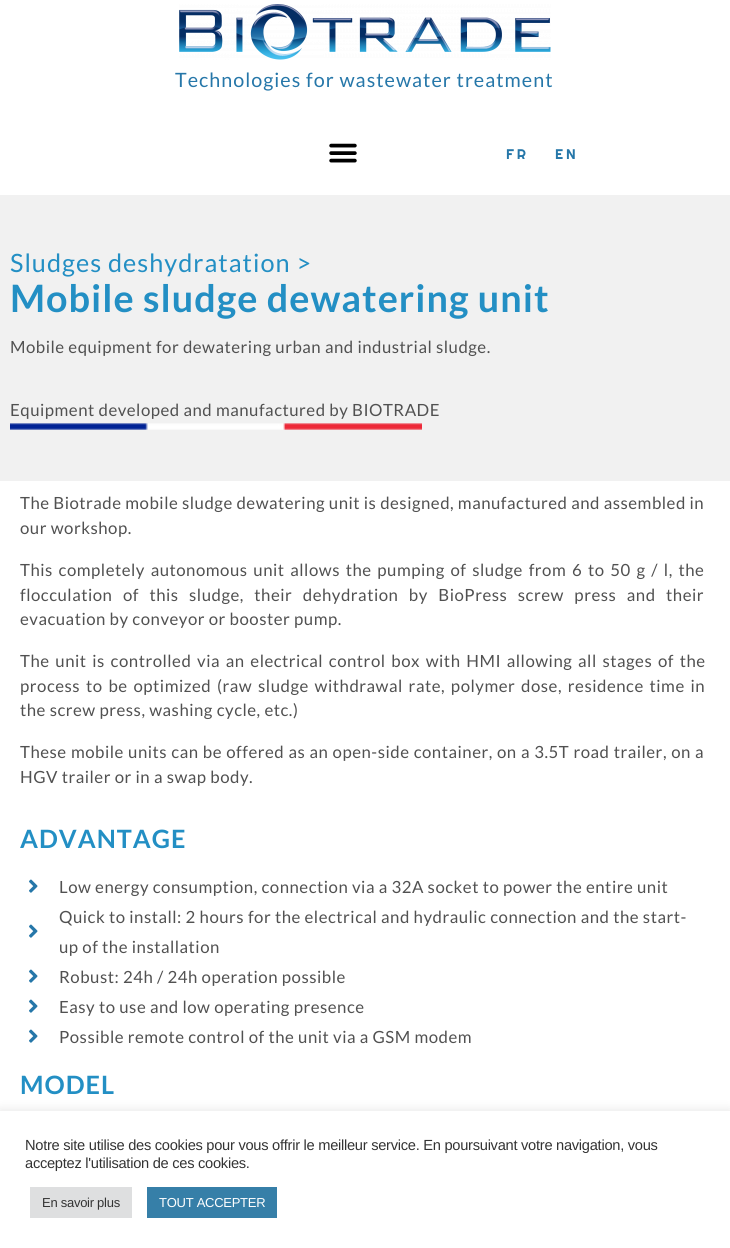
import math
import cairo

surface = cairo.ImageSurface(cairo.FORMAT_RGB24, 730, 1248)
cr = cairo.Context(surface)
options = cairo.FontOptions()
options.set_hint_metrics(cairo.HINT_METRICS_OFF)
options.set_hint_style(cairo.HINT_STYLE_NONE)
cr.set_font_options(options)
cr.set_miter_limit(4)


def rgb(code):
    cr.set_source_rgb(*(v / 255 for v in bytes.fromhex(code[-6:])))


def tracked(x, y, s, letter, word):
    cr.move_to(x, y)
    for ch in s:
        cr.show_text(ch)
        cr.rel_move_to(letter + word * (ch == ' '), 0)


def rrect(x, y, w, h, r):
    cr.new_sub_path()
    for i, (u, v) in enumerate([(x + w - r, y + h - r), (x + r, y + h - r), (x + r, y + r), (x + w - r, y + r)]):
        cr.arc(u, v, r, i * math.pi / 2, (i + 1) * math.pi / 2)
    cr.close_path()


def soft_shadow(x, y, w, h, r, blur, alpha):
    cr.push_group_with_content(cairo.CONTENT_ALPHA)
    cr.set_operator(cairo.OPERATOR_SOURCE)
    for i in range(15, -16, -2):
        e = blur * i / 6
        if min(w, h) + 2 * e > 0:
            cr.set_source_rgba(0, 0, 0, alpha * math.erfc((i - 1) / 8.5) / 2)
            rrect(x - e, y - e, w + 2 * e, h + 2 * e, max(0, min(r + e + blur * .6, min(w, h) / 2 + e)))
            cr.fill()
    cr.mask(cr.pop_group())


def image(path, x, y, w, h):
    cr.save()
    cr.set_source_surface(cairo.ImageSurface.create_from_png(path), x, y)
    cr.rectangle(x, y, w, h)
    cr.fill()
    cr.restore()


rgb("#ffffff")
cr.paint()
image("img/1.png", 179, 4, 372, 56)
image("img/2.png", 329, 143, 28, 20)
rgb("#f1f1f1")
cr.rectangle(0, 195, 730, 286)
cr.fill()
image("img/3.png", 10, 423, 412, 7)
image("img/4.png", 29, 879, 9, 14)
image("img/4.png", 29, 924, 9, 14)
image("img/4.png", 29, 969, 9, 14)
image("img/4.png", 29, 999, 9, 14)
image("img/4.png", 29, 1029, 9, 14)
rgb("#acabab")
soft_shadow(0, 1110, 730, 137, 0, 5, 0.3)
for x, y, w, h, color in [
    (0, 1111, 730, 137, "#ffffff"),
    (30, 1187, 102, 31, "#dedfe0"),
    (147, 1187, 130, 31, "#367fa8"),
]:
    rgb(color)
    cr.rectangle(x, y, w, h)
    cr.fill()
cr.select_font_face("Lato")
cr.set_font_size(19.75)
rgb("#2677a9")
tracked(175, 87, "Technologies for wastewater treatment", 1, 0)
cr.select_font_face("Righteous")
cr.set_font_size(14)
tracked(506, 159, "FR", 3, 0)
tracked(555, 159, "EN", 3, 0)
cr.select_font_face("Lato")
cr.set_font_size(25.25)
rgb("#238fc4")
tracked(10, 272, "Sludges deshydratation >", 1, 0)
cr.select_font_face("Lato", cairo.FONT_SLANT_NORMAL, cairo.FONT_WEIGHT_BOLD)
cr.set_font_size(37.75)
tracked(10, 312, "Mobile sludge dewatering unit", 1, 0)
cr.select_font_face("Lato")
cr.set_font_size(16.8)
rgb("#515151")
for x, y, s in [
    (10, 353, "Mobile equipment for dewatering urban and industrial sludge."),
    (10, 416, "Equipment developed and manufactured by BIOTRADE"),
    (20, 509, "The Biotrade mobile sludge dewatering unit is designed, manufactured and assembled in"),
    (20, 534, "our workshop."),
]:
    tracked(x, y, s, 0.5, 0)
tracked(20, 576, "This completely autonomous unit allows the pumping of sludge from 6 to 50 g / l, the", 0.5, 2)
tracked(20, 601, "flocculation of this sludge, their dehydration by BioPress screw press and their", 0.5, 6.75)
tracked(20, 625, "evacuation by conveyor or booster pump.", 0.5, 0)
tracked(20, 667, "The unit is controlled via an electrical control box with HMI allowing all stages of the", 0.5, 2)
tracked(20, 692, "process to be optimized (raw sludge withdrawal rate, polymer dose, residence time in", 0.5, 2.1)
tracked(20, 716, "the screw press, washing cycle, etc.)", 0.5, 0)
tracked(20, 758, "These mobile units can be offered as an open-side container, on a 3.5T road trailer, on a", 0.5, 0.5)
tracked(20, 783, "HGV trailer or in a swap body.", 0.5, 0)
cr.select_font_face("Lato", cairo.FONT_SLANT_NORMAL, cairo.FONT_WEIGHT_BOLD)
cr.set_font_size(25.25)
rgb("#238fc4")
tracked(20, 848, "ADVANTAGE", 1, 0)
cr.select_font_face("Lato")
cr.set_font_size(16.8)
rgb("#515151")
for x, y, s in [
    (59, 893, "Low energy consumption, connection via a 32A socket to power the entire unit"),
    (59, 923, "Quick to install: 2 hours for the electrical and hydraulic connection and the start-"),
    (59, 953, "up of the installation"),
    (59, 983, "Robust: 24h / 24h operation possible"),
    (59, 1013, "Easy to use and low operating presence"),
    (59, 1043, "Possible remote control of the unit via a GSM modem"),
]:
    tracked(x, y, s, 0.5, 0)
cr.select_font_face("Lato", cairo.FONT_SLANT_NORMAL, cairo.FONT_WEIGHT_BOLD)
cr.set_font_size(25.25)
rgb("#238fc4")
tracked(20, 1094, "MODEL", 1, 0)
cr.select_font_face("Liberation Sans")
cr.set_font_size(14.65)
rgb("#333333")
tracked(25, 1150, "Notre site utilise des cookies pour vous offrir le meilleur service. En poursuivant votre navigation, vous", -0.27, 0)
tracked(25, 1168, "acceptez l'utilisation de ces cookies.", -0.27, 0)
cr.set_font_size(13)
tracked(42, 1207, "En savoir plus", -0.27, 0)
rgb("#ffffff")
tracked(159, 1207, "TOUT ACCEPTER", -0.27, 0)
surface.write_to_png("page.png")
